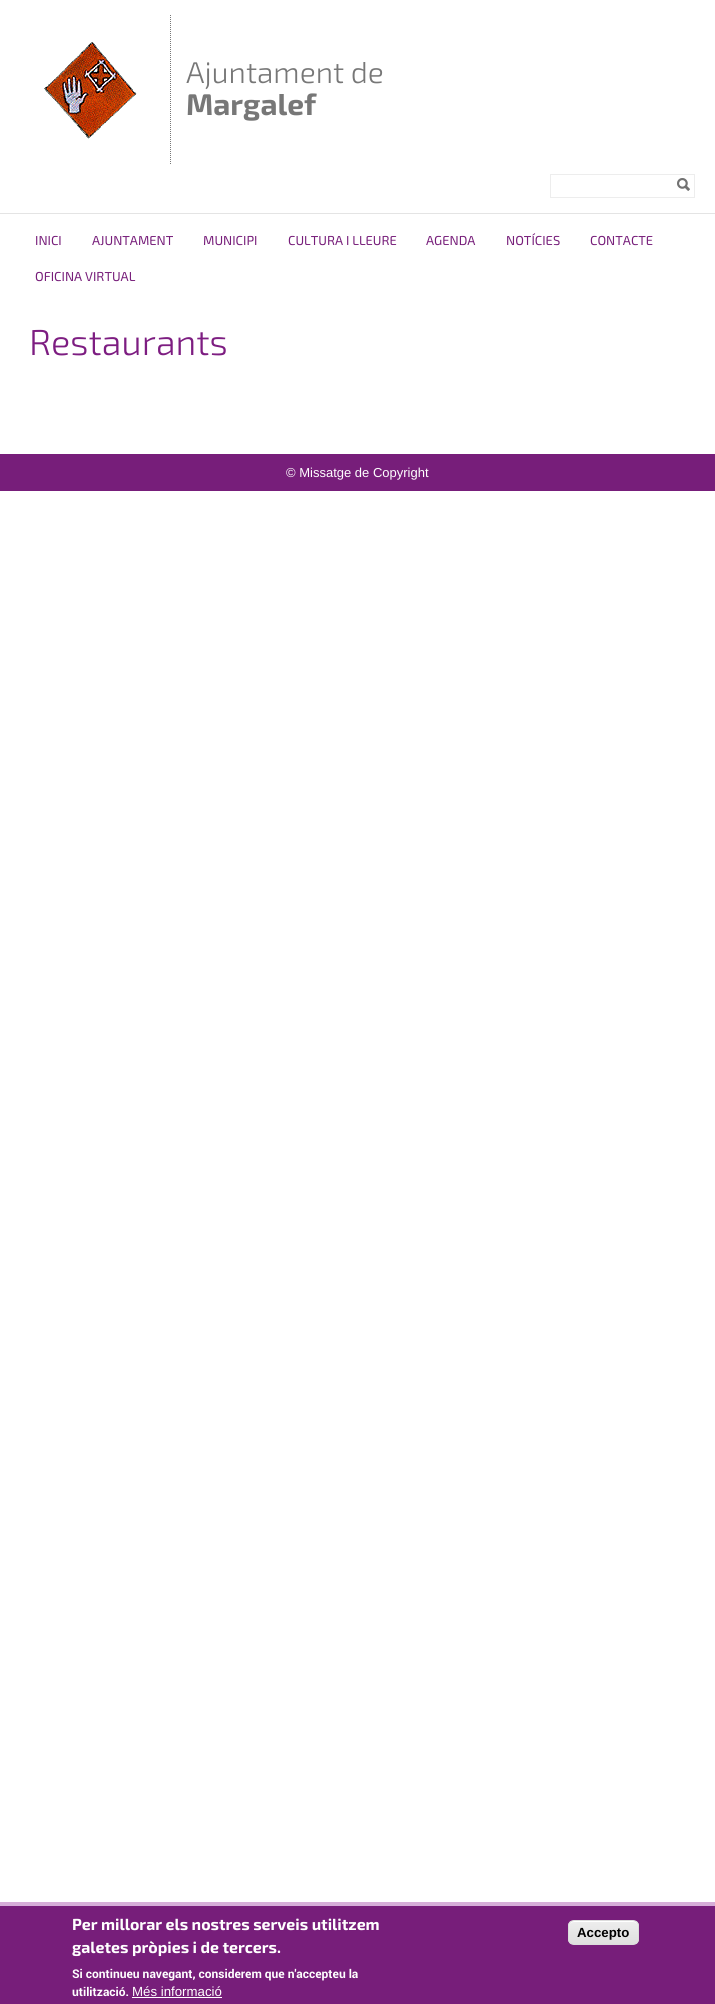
import math
import cairo

surface = cairo.ImageSurface(cairo.FORMAT_RGB24, 715, 2004)
cr = cairo.Context(surface)
options = cairo.FontOptions()
options.set_hint_metrics(cairo.HINT_METRICS_OFF)
options.set_hint_style(cairo.HINT_STYLE_NONE)
cr.set_font_options(options)
cr.set_miter_limit(4)


def rgb(code):
    cr.set_source_rgb(*(v / 255 for v in bytes.fromhex(code[-6:])))


def rrect(x, y, w, h, r):
    cr.new_sub_path()
    for i, (u, v) in enumerate([(x + w - r, y + h - r), (x + r, y + h - r), (x + r, y + r), (x + w - r, y + r)]):
        cr.arc(u, v, r, i * math.pi / 2, (i + 1) * math.pi / 2)
    cr.close_path()


def image(path, x, y, w, h):
    cr.save()
    cr.set_source_surface(cairo.ImageSurface.create_from_png(path), x, y)
    cr.rectangle(x, y, w, h)
    cr.fill()
    cr.restore()


rgb("#ffffff")
cr.paint()
image("img/1.png", 44, 42, 93, 97)
cr.new_path()
cr.move_to(170.5, 15)
cr.line_to(170.5, 164)
rgb("#777777")
cr.set_line_width(1)
cr.set_dash([1, 1])
cr.stroke()
cr.rectangle(550.5, 174.5, 144, 23)
rgb("#ededed")
cr.set_dash([])
cr.stroke()
image("img/2.png", 677, 178, 13, 13)
for x, y, w, h, color in [
    (0, 213, 715, 1, "#e4e4e4"),
    (0, 454, 715, 37, "#771e7a"),
    (0, 1906, 715, 98, "#771e7a"),
    (0, 1902, 715, 4, "#d6add8"),
    (132, 1997, 90, 1, "#ffffff"),
]:
    rgb(color)
    cr.rectangle(x, y, w, h)
    cr.fill()
cr.save()
rrect(568, 1920, 71, 25, 6)
cr.clip()
gradient = cairo.LinearGradient(604, 1921, 604, 1944)
gradient.add_color_stop_rgba(0.05, 0.929, 0.929, 0.929, 1)
gradient.add_color_stop_rgba(1, 0.875, 0.875, 0.875, 1)
cr.set_source(gradient)
cr.rectangle(568, 1921, 71, 23)
cr.fill()
cr.restore()
cr.new_path()
cr.move_to(574, 1922)
cr.line_to(633, 1922)
cr.curve_to(636, 1922, 638, 1924, 638, 1927)
cr.curve_to(638, 1919, 629, 1921, 623, 1921)
cr.line_to(584, 1921)
cr.curve_to(578, 1921, 569, 1919, 569, 1927)
cr.curve_to(569, 1924, 571, 1922, 574, 1922)
cr.close_path()
cr.fill()
rrect(568.5, 1920.5, 70, 24, 5.5)
rgb("#dcdcdc")
cr.stroke()
cr.select_font_face("Exo 2 Light")
cr.set_font_size(30)
rgb("#777777")
cr.move_to(186, 83)
cr.show_text("Ajuntament de")
cr.select_font_face("Exo 2", cairo.FONT_SLANT_NORMAL, cairo.FONT_WEIGHT_BOLD)
cr.move_to(186, 115)
cr.show_text("Margalef")
cr.select_font_face("Exo 2")
cr.set_font_size(13)
rgb("#771e7a")
for x, y, s in [
    (35, 245, "INICI"),
    (92, 245, "AJUNTAMENT"),
    (203, 245, "MUNICIPI"),
    (288, 245, "CULTURA I LLEURE"),
    (426, 245, "AGENDA"),
    (506, 245, "NOTÍCIES"),
    (590, 245, "CONTACTE"),
    (35, 281, "OFICINA VIRTUAL"),
]:
    cr.move_to(x, y)
    cr.show_text(s)
cr.select_font_face("Exo 2 Light")
cr.set_font_size(36)
rgb("#7d1d81")
cr.move_to(29, 355)
cr.show_text("Restaurants")
cr.select_font_face("Liberation Sans")
cr.set_font_size(13)
rgb("#ffffff")
cr.move_to(286, 477)
cr.show_text("© Missatge de Copyright")
cr.select_font_face("Exo 2", cairo.FONT_SLANT_NORMAL, cairo.FONT_WEIGHT_BOLD)
cr.set_font_size(16)
cr.move_to(72, 1930)
cr.show_text("Per millorar els nostres serveis utilitzem")
cr.move_to(72, 1953)
cr.show_text("galetes pròpies i de tercers.")
cr.select_font_face("Roboto", cairo.FONT_SLANT_NORMAL, cairo.FONT_WEIGHT_BOLD)
cr.set_font_size(12)
cr.move_to(72, 1978)
cr.show_text("Si continueu navegant, considerem que n'accepteu la")
cr.move_to(72, 1996)
cr.show_text("utilització.")
cr.select_font_face("Liberation Sans")
cr.set_font_size(13.25)
cr.move_to(132, 1996)
cr.show_text("Més informació")
cr.select_font_face("Liberation Sans", cairo.FONT_SLANT_NORMAL, cairo.FONT_WEIGHT_BOLD)
rgb("#000000")
cr.move_to(577, 1937)
cr.show_text("Accepto")
surface.write_to_png("page.png")
